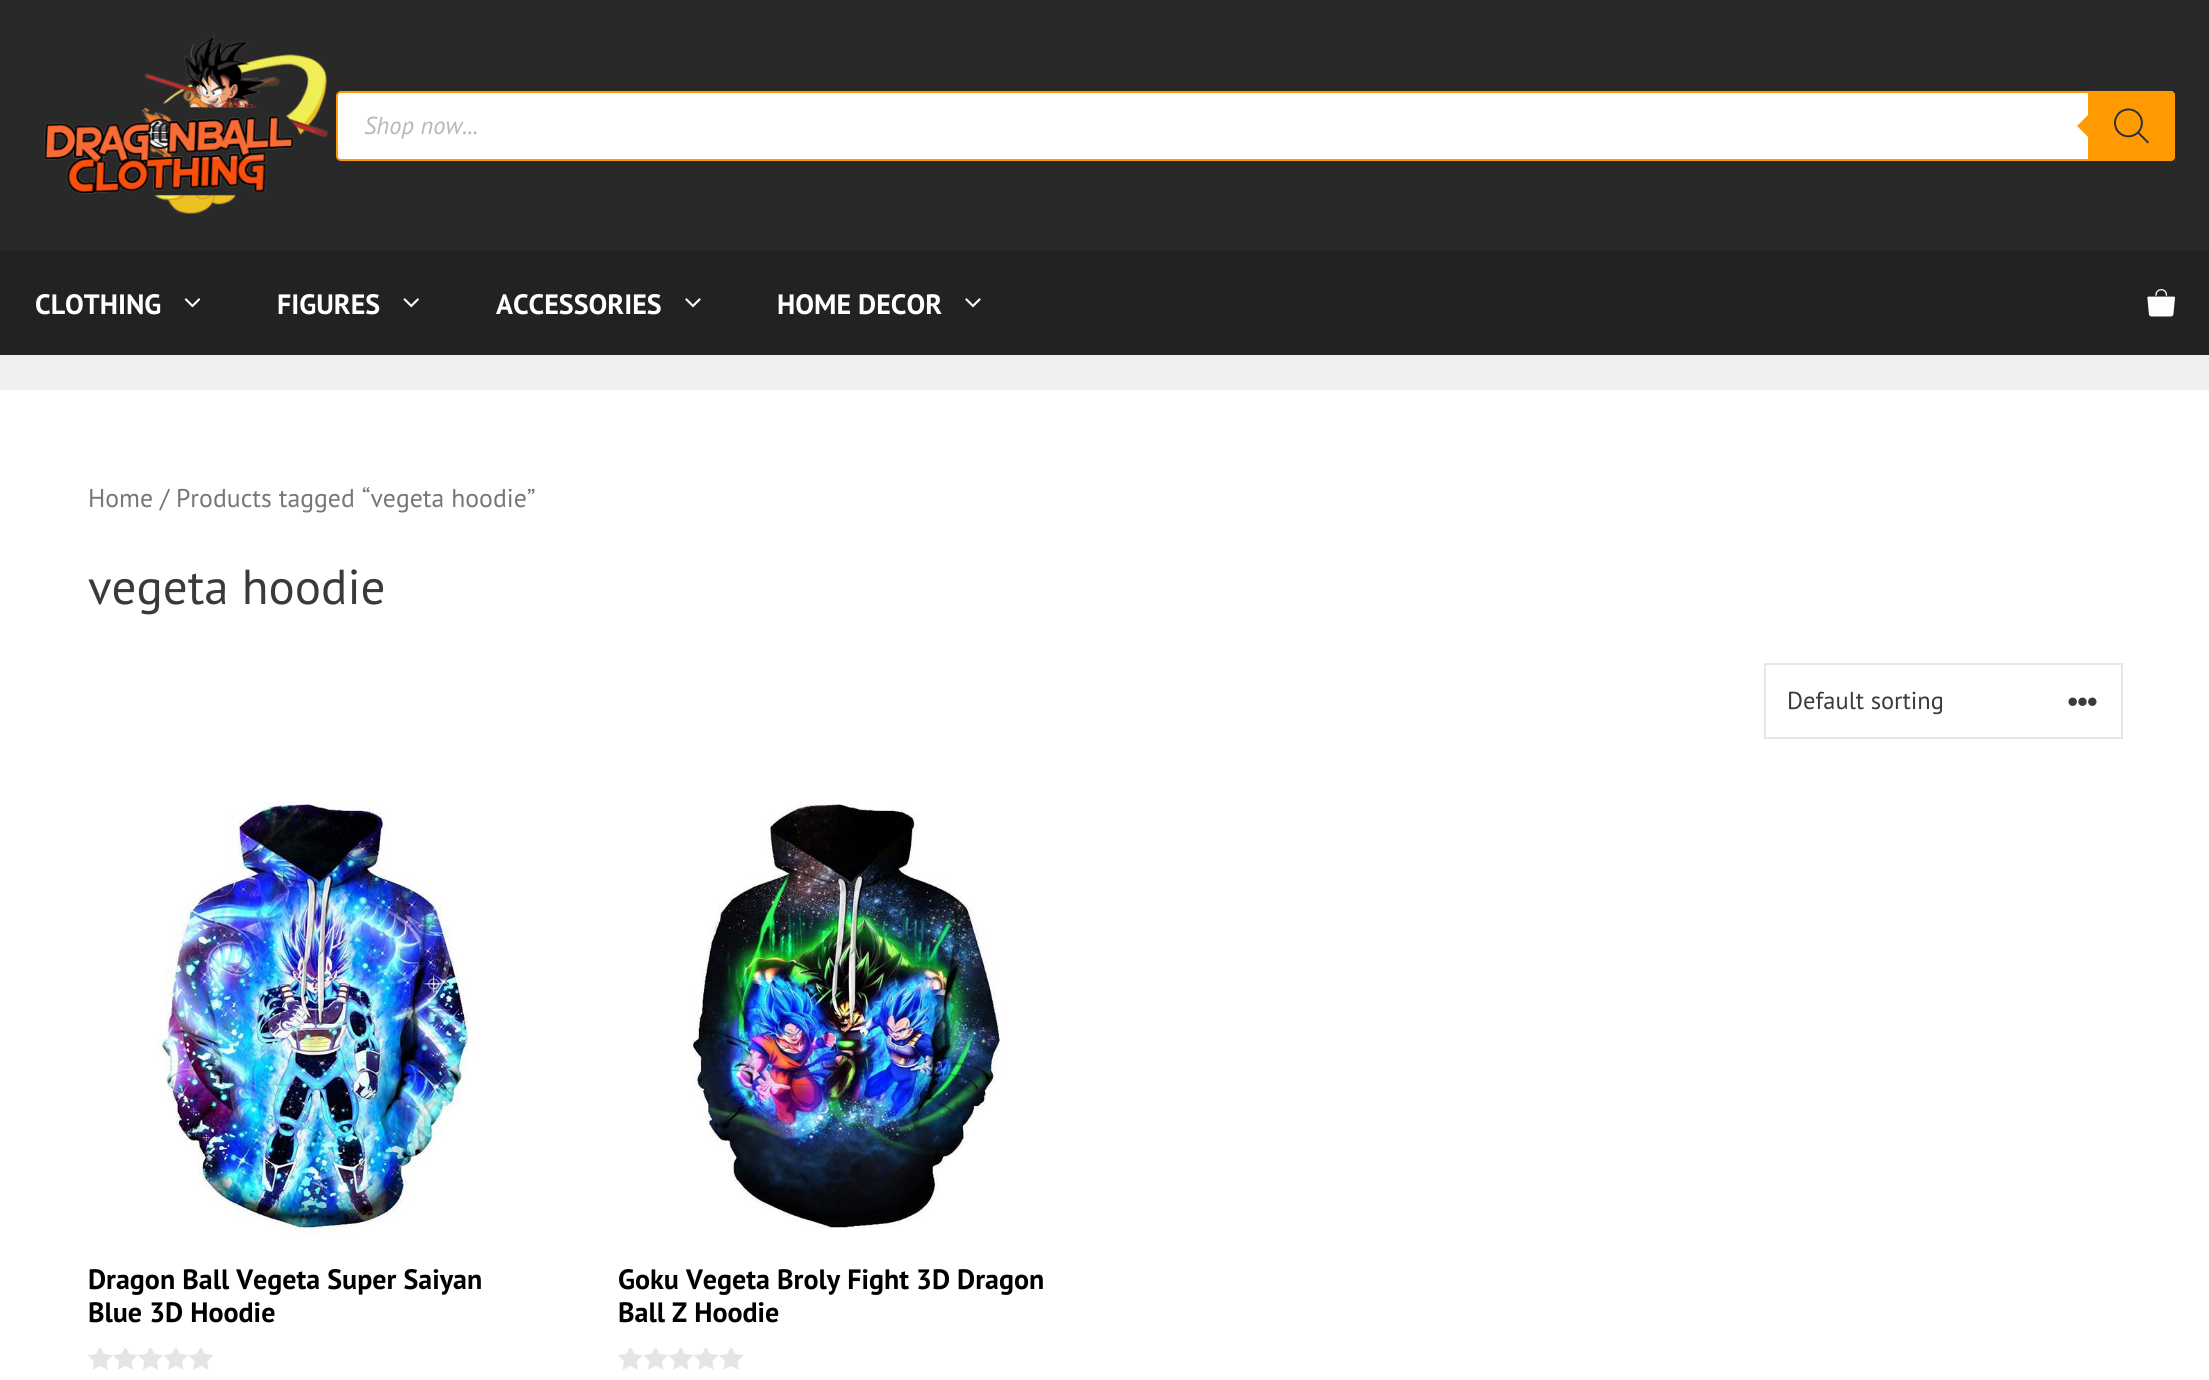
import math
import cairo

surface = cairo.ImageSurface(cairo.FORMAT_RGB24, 2209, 1380)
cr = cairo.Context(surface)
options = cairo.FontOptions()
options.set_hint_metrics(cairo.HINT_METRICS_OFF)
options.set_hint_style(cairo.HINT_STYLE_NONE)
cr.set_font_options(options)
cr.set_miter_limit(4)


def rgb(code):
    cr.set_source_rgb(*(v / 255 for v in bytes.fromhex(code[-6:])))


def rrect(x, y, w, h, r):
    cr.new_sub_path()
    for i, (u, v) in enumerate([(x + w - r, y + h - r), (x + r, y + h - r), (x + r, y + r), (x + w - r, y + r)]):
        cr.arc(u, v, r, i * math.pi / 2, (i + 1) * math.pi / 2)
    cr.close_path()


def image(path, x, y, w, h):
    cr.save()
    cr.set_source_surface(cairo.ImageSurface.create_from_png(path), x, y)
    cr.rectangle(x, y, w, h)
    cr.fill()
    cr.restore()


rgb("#efefef")
cr.paint()
rgb("#292929")
cr.rectangle(0, 0, 2209, 250)
cr.fill()
image("img/1.png", 44, 35, 284, 179)
rgb("#ffffff")
rrect(337, 92, 1837, 68, 4)
cr.fill_preserve()
rgb("#ff9b00")
cr.stroke()
cr.new_path()
cr.move_to(2088, 91)
cr.line_to(2171, 91)
cr.curve_to(2173, 91, 2175, 93, 2175, 95)
cr.line_to(2175, 157)
cr.curve_to(2175, 159, 2173, 161, 2171, 161)
cr.line_to(2088, 161)
cr.close_path()
cr.fill()
cr.new_path()
cr.move_to(2091, 112)
cr.line_to(2091, 140)
cr.line_to(2077, 126)
cr.close_path()
cr.fill()
image("img/2.png", 2114, 108, 35, 36)
rgb("#222222")
cr.rectangle(0, 250, 2209, 105)
cr.fill()
image("img/3.png", 184, 298, 17, 10)
image("img/4.png", 403, 298, 16, 10)
image("img/5.png", 685, 298, 16, 10)
image("img/5.png", 965, 298, 16, 10)
image("img/6.png", 2147, 289, 28, 28)
rgb("#ffffff")
cr.rectangle(0, 390, 2209, 990)
cr.fill()
cr.rectangle(1765, 664, 357, 74)
rgb("#e6e6e6")
cr.stroke()
image("img/7.png", 2068, 697, 29, 9)
image("img/8.png", 154, 802, 321, 432)
image("img/9.png", 88, 1348, 125, 22)
image("img/10.png", 690, 802, 311, 427)
image("img/11.png", 618, 1348, 126, 22)
cr.select_font_face("PT Sans", cairo.FONT_SLANT_ITALIC)
cr.set_font_size(24.5)
rgb("#b8b8b8")
cr.move_to(364, 134)
cr.show_text("Shop now...")
cr.select_font_face("PT Sans", cairo.FONT_SLANT_NORMAL, cairo.FONT_WEIGHT_BOLD)
cr.set_font_size(28)
rgb("#ffffff")
for x, y, s in [
    (35, 314, "CLOTHING"),
    (277, 314, "FIGURES"),
    (496, 314, "ACCESSORIES"),
    (777, 314, "HOME DECOR"),
]:
    cr.move_to(x, y)
    cr.show_text(s)
cr.select_font_face("PT Sans")
cr.set_font_size(25.75)
rgb("#767676")
cr.move_to(88, 507)
cr.show_text("Home / Products tagged “vegeta hoodie”")
cr.set_font_size(49)
rgb("#3a3a3a")
cr.move_to(88, 604)
cr.show_text("vegeta hoodie")
cr.set_font_size(24.5)
cr.move_to(1787, 709)
cr.show_text("Default sorting")
cr.select_font_face("PT Sans", cairo.FONT_SLANT_NORMAL, cairo.FONT_WEIGHT_BOLD)
cr.set_font_size(28)
rgb("#000000")
for x, y, s in [
    (88, 1289, "Dragon Ball Vegeta Super Saiyan"),
    (88, 1322, "Blue 3D Hoodie"),
    (618, 1289, "Goku Vegeta Broly Fight 3D Dragon"),
    (618, 1322, "Ball Z Hoodie"),
]:
    cr.move_to(x, y)
    cr.show_text(s)
surface.write_to_png("page.png")
